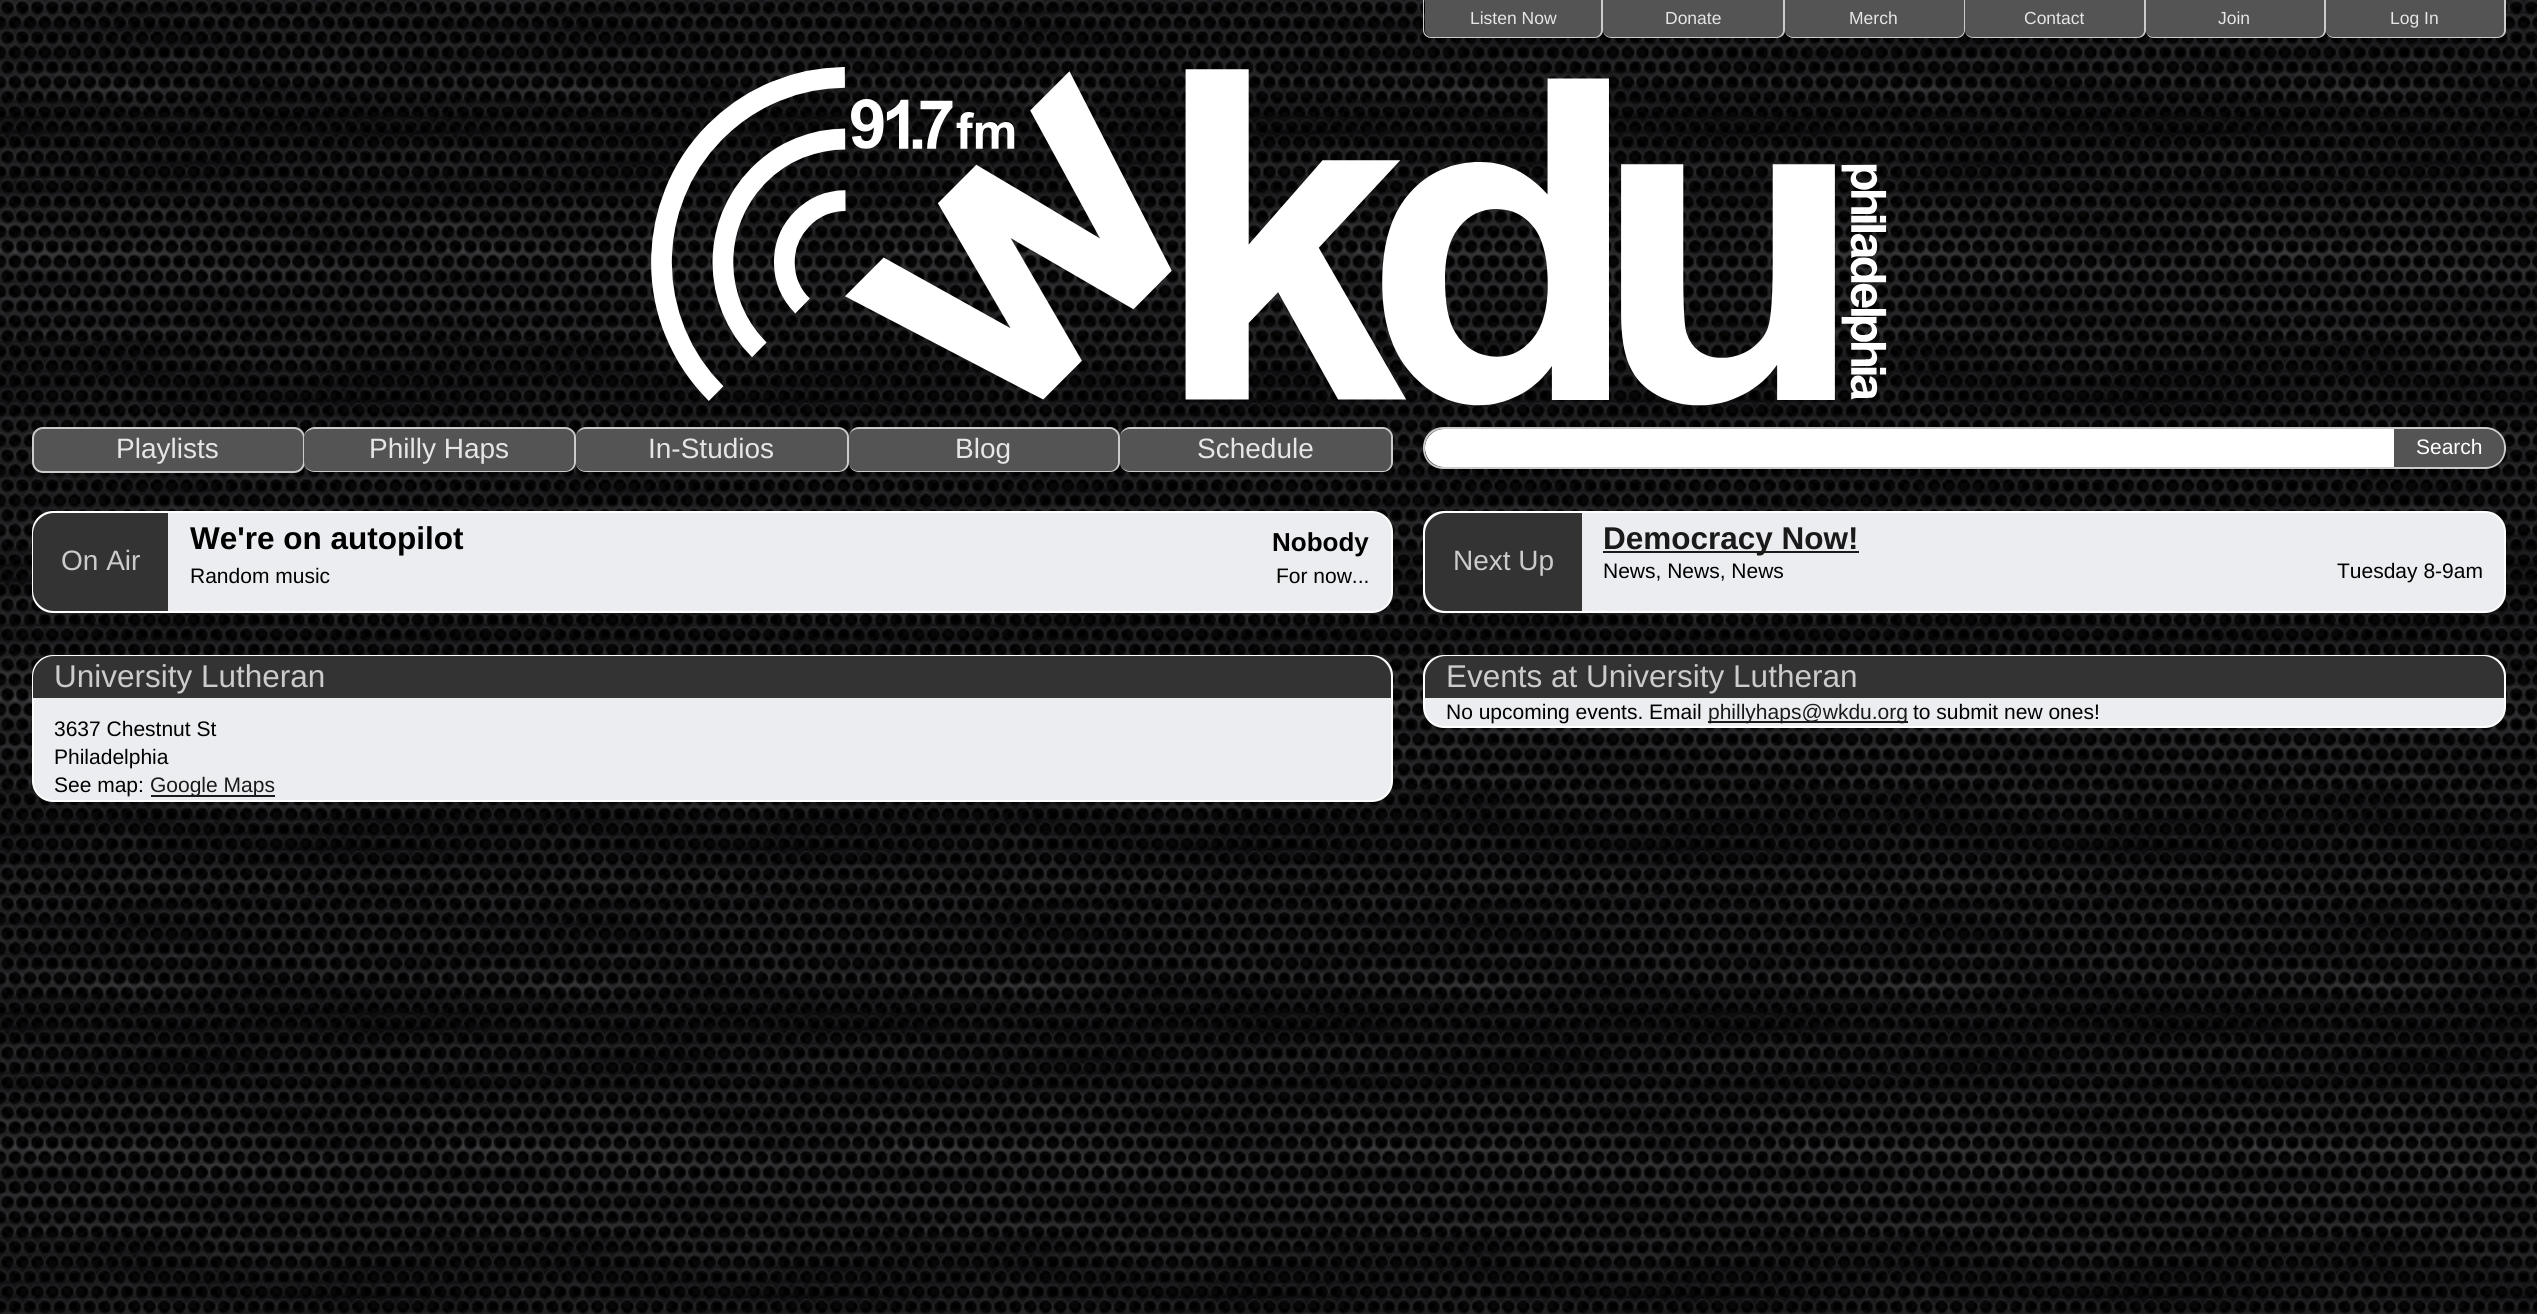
import math
import cairo

surface = cairo.ImageSurface(cairo.FORMAT_RGB24, 2537, 1314)
cr = cairo.Context(surface)
options = cairo.FontOptions()
options.set_hint_metrics(cairo.HINT_METRICS_OFF)
options.set_hint_style(cairo.HINT_STYLE_NONE)
cr.set_font_options(options)
cr.set_miter_limit(4)


def rgb(code):
    cr.set_source_rgb(*(v / 255 for v in bytes.fromhex(code[-6:])))


def rrect(x, y, w, h, r):
    cr.new_sub_path()
    for i, (u, v) in enumerate([(x + w - r, y + h - r), (x + r, y + h - r), (x + r, y + r), (x + w - r, y + r)]):
        cr.arc(u, v, r, i * math.pi / 2, (i + 1) * math.pi / 2)
    cr.close_path()


def image(path, x, y, w, h):
    cr.save()
    cr.set_source_surface(cairo.ImageSurface.create_from_png(path), x, y)
    cr.rectangle(x, y, w, h)
    cr.fill()
    cr.restore()


rgb("#ffffff")
cr.paint()
image("img/1.png", 0, 0, 2537, 1314)
rgb("#545454")
cr.new_path()
cr.move_to(1425, 0)
cr.line_to(1601, 0)
cr.line_to(1601, 30)
cr.curve_to(1601, 34, 1598, 37, 1594, 37)
cr.line_to(1432, 37)
cr.curve_to(1428, 37, 1425, 34, 1425, 30)
cr.close_path()
cr.fill()
rgb("#cccccc")
cr.set_fill_rule(cairo.FILL_RULE_EVEN_ODD)
cr.new_path()
cr.move_to(1423, 0)
cr.line_to(1603, 0)
cr.line_to(1603, 30)
cr.curve_to(1603, 35, 1599, 38, 1594, 38)
cr.line_to(1431, 38)
cr.curve_to(1427, 38, 1423, 35, 1423, 30)
cr.close_path()
cr.move_to(1424, 0)
cr.line_to(1601, 0)
cr.line_to(1601, 30)
cr.curve_to(1601, 34, 1598, 37, 1594, 37)
cr.line_to(1431, 37)
cr.curve_to(1428, 37, 1424, 34, 1424, 30)
cr.close_path()
cr.fill()
rgb("#545454")
cr.set_fill_rule(cairo.FILL_RULE_WINDING)
cr.new_path()
cr.move_to(1603, 0)
cr.line_to(1783, 0)
cr.line_to(1783, 30)
cr.curve_to(1783, 34, 1780, 37, 1776, 37)
cr.line_to(1612, 37)
cr.curve_to(1607, 37, 1603, 34, 1603, 30)
cr.close_path()
cr.fill()
rgb("#cccccc")
cr.set_fill_rule(cairo.FILL_RULE_EVEN_ODD)
cr.new_path()
cr.move_to(1603, 0)
cr.line_to(1785, 0)
cr.line_to(1785, 30)
cr.curve_to(1785, 35, 1781, 38, 1776, 38)
cr.line_to(1612, 38)
cr.curve_to(1607, 38, 1603, 35, 1603, 30)
cr.close_path()
cr.move_to(1603, 0)
cr.line_to(1783, 0)
cr.line_to(1783, 30)
cr.curve_to(1783, 34, 1780, 37, 1776, 37)
cr.line_to(1612, 37)
cr.curve_to(1607, 37, 1603, 34, 1603, 30)
cr.close_path()
cr.fill()
rgb("#545454")
cr.set_fill_rule(cairo.FILL_RULE_WINDING)
cr.new_path()
cr.move_to(1785, 0)
cr.line_to(1964, 0)
cr.line_to(1964, 30)
cr.curve_to(1964, 34, 1960, 37, 1957, 37)
cr.line_to(1794, 37)
cr.curve_to(1789, 37, 1785, 34, 1785, 30)
cr.close_path()
cr.fill()
rgb("#cccccc")
cr.set_fill_rule(cairo.FILL_RULE_EVEN_ODD)
cr.new_path()
cr.move_to(1785, 0)
cr.line_to(1965, 0)
cr.line_to(1965, 30)
cr.curve_to(1965, 35, 1961, 38, 1957, 38)
cr.line_to(1794, 38)
cr.curve_to(1789, 38, 1785, 35, 1785, 30)
cr.close_path()
cr.move_to(1785, 0)
cr.line_to(1964, 0)
cr.line_to(1964, 30)
cr.curve_to(1964, 34, 1960, 37, 1957, 37)
cr.line_to(1794, 37)
cr.curve_to(1789, 37, 1785, 34, 1785, 30)
cr.close_path()
cr.fill()
rgb("#545454")
cr.set_fill_rule(cairo.FILL_RULE_WINDING)
cr.new_path()
cr.move_to(1965, 0)
cr.line_to(2144, 0)
cr.line_to(2144, 30)
cr.curve_to(2144, 34, 2141, 37, 2137, 37)
cr.line_to(1974, 37)
cr.curve_to(1969, 37, 1965, 34, 1965, 30)
cr.close_path()
cr.fill()
rgb("#cccccc")
cr.set_fill_rule(cairo.FILL_RULE_EVEN_ODD)
cr.new_path()
cr.move_to(1965, 0)
cr.line_to(2146, 0)
cr.line_to(2146, 30)
cr.curve_to(2146, 35, 2142, 38, 2137, 38)
cr.line_to(1974, 38)
cr.curve_to(1969, 38, 1965, 35, 1965, 30)
cr.close_path()
cr.move_to(1965, 0)
cr.line_to(2144, 0)
cr.line_to(2144, 30)
cr.curve_to(2144, 34, 2141, 37, 2137, 37)
cr.line_to(1974, 37)
cr.curve_to(1969, 37, 1965, 34, 1965, 30)
cr.close_path()
cr.fill()
rgb("#545454")
cr.set_fill_rule(cairo.FILL_RULE_WINDING)
cr.new_path()
cr.move_to(2146, 0)
cr.line_to(2324, 0)
cr.line_to(2324, 30)
cr.curve_to(2324, 34, 2321, 37, 2317, 37)
cr.line_to(2154, 37)
cr.curve_to(2149, 37, 2146, 34, 2146, 30)
cr.close_path()
cr.fill()
rgb("#cccccc")
cr.set_fill_rule(cairo.FILL_RULE_EVEN_ODD)
cr.new_path()
cr.move_to(2146, 0)
cr.line_to(2326, 0)
cr.line_to(2326, 30)
cr.curve_to(2326, 35, 2322, 38, 2317, 38)
cr.line_to(2154, 38)
cr.curve_to(2149, 38, 2146, 35, 2146, 30)
cr.close_path()
cr.move_to(2146, 0)
cr.line_to(2324, 0)
cr.line_to(2324, 30)
cr.curve_to(2324, 34, 2321, 37, 2317, 37)
cr.line_to(2154, 37)
cr.curve_to(2149, 37, 2146, 34, 2146, 30)
cr.close_path()
cr.fill()
rgb("#545454")
cr.set_fill_rule(cairo.FILL_RULE_WINDING)
cr.new_path()
cr.move_to(2326, 0)
cr.line_to(2504, 0)
cr.line_to(2504, 30)
cr.curve_to(2504, 34, 2501, 37, 2497, 37)
cr.line_to(2334, 37)
cr.curve_to(2330, 37, 2326, 34, 2326, 30)
cr.close_path()
cr.fill()
rgb("#cccccc")
cr.set_fill_rule(cairo.FILL_RULE_EVEN_ODD)
cr.new_path()
cr.move_to(2326, 0)
cr.line_to(2506, 0)
cr.line_to(2506, 30)
cr.curve_to(2506, 35, 2502, 38, 2497, 38)
cr.line_to(2334, 38)
cr.curve_to(2330, 38, 2326, 35, 2326, 30)
cr.close_path()
cr.move_to(2326, 0)
cr.line_to(2504, 0)
cr.line_to(2504, 30)
cr.curve_to(2504, 34, 2501, 37, 2497, 37)
cr.line_to(2334, 37)
cr.curve_to(2330, 37, 2326, 34, 2326, 30)
cr.close_path()
cr.fill()
image("img/2.png", 651, 67, 1236, 339)
rgb("#545454")
rrect(33, 428, 271, 44, 10)
cr.fill_preserve()
rgb("#cccccc")
cr.stroke()
rgb("#545454")
cr.set_fill_rule(cairo.FILL_RULE_WINDING)
cr.new_path()
cr.move_to(315, 429)
cr.line_to(565, 429)
cr.curve_to(570, 429, 574, 433, 574, 437)
cr.line_to(574, 462)
cr.curve_to(574, 467, 570, 471, 565, 471)
cr.line_to(315, 471)
cr.curve_to(309, 471, 304, 467, 304, 462)
cr.line_to(304, 437)
cr.curve_to(304, 433, 309, 429, 315, 429)
cr.close_path()
cr.fill()
rgb("#cccccc")
cr.set_fill_rule(cairo.FILL_RULE_EVEN_ODD)
cr.new_path()
cr.move_to(315, 427)
cr.line_to(565, 427)
cr.curve_to(571, 427, 576, 432, 576, 437)
cr.line_to(576, 462)
cr.curve_to(576, 468, 571, 472, 565, 472)
cr.line_to(315, 472)
cr.curve_to(309, 472, 304, 468, 304, 462)
cr.line_to(304, 437)
cr.curve_to(304, 432, 309, 427, 315, 427)
cr.close_path()
cr.move_to(315, 429)
cr.line_to(565, 429)
cr.curve_to(570, 429, 574, 433, 574, 437)
cr.line_to(574, 462)
cr.curve_to(574, 467, 570, 471, 565, 471)
cr.line_to(315, 471)
cr.curve_to(309, 471, 304, 467, 304, 462)
cr.line_to(304, 437)
cr.curve_to(304, 433, 309, 429, 315, 429)
cr.close_path()
cr.fill()
rgb("#545454")
cr.set_fill_rule(cairo.FILL_RULE_WINDING)
cr.new_path()
cr.move_to(586, 429)
cr.line_to(838, 429)
cr.curve_to(843, 429, 847, 433, 847, 437)
cr.line_to(847, 462)
cr.curve_to(847, 467, 843, 471, 838, 471)
cr.line_to(586, 471)
cr.curve_to(580, 471, 576, 467, 576, 462)
cr.line_to(576, 437)
cr.curve_to(576, 433, 580, 429, 586, 429)
cr.close_path()
cr.fill()
rgb("#cccccc")
cr.set_fill_rule(cairo.FILL_RULE_EVEN_ODD)
cr.new_path()
cr.move_to(586, 427)
cr.line_to(838, 427)
cr.curve_to(844, 427, 849, 432, 849, 437)
cr.line_to(849, 462)
cr.curve_to(849, 468, 844, 472, 838, 472)
cr.line_to(586, 472)
cr.curve_to(580, 472, 576, 468, 576, 462)
cr.line_to(576, 437)
cr.curve_to(576, 432, 580, 427, 586, 427)
cr.close_path()
cr.move_to(586, 429)
cr.line_to(838, 429)
cr.curve_to(843, 429, 847, 433, 847, 437)
cr.line_to(847, 462)
cr.curve_to(847, 467, 843, 471, 838, 471)
cr.line_to(586, 471)
cr.curve_to(580, 471, 576, 467, 576, 462)
cr.line_to(576, 437)
cr.curve_to(576, 433, 580, 429, 586, 429)
cr.close_path()
cr.fill()
rgb("#545454")
cr.set_fill_rule(cairo.FILL_RULE_WINDING)
cr.new_path()
cr.move_to(859, 429)
cr.line_to(1110, 429)
cr.curve_to(1114, 429, 1118, 433, 1118, 437)
cr.line_to(1118, 462)
cr.curve_to(1118, 467, 1114, 471, 1110, 471)
cr.line_to(859, 471)
cr.curve_to(853, 471, 849, 467, 849, 462)
cr.line_to(849, 437)
cr.curve_to(849, 433, 853, 429, 859, 429)
cr.close_path()
cr.fill()
rgb("#cccccc")
cr.set_fill_rule(cairo.FILL_RULE_EVEN_ODD)
cr.new_path()
cr.move_to(859, 427)
cr.line_to(1110, 427)
cr.curve_to(1115, 427, 1120, 432, 1120, 437)
cr.line_to(1120, 462)
cr.curve_to(1120, 468, 1115, 472, 1110, 472)
cr.line_to(859, 472)
cr.curve_to(853, 472, 849, 468, 849, 462)
cr.line_to(849, 437)
cr.curve_to(849, 432, 853, 427, 859, 427)
cr.close_path()
cr.move_to(859, 429)
cr.line_to(1110, 429)
cr.curve_to(1114, 429, 1118, 433, 1118, 437)
cr.line_to(1118, 462)
cr.curve_to(1118, 467, 1114, 471, 1110, 471)
cr.line_to(859, 471)
cr.curve_to(853, 471, 849, 467, 849, 462)
cr.line_to(849, 437)
cr.curve_to(849, 433, 853, 429, 859, 429)
cr.close_path()
cr.fill()
rgb("#545454")
cr.set_fill_rule(cairo.FILL_RULE_WINDING)
cr.new_path()
cr.move_to(1130, 429)
cr.line_to(1383, 429)
cr.curve_to(1387, 429, 1391, 433, 1391, 437)
cr.line_to(1391, 462)
cr.curve_to(1391, 467, 1387, 471, 1383, 471)
cr.line_to(1130, 471)
cr.curve_to(1125, 471, 1120, 467, 1120, 462)
cr.line_to(1120, 437)
cr.curve_to(1120, 433, 1125, 429, 1130, 429)
cr.close_path()
cr.fill()
rgb("#cccccc")
cr.set_fill_rule(cairo.FILL_RULE_EVEN_ODD)
cr.new_path()
cr.move_to(1130, 427)
cr.line_to(1383, 427)
cr.curve_to(1388, 427, 1393, 432, 1393, 437)
cr.line_to(1393, 462)
cr.curve_to(1393, 468, 1388, 472, 1383, 472)
cr.line_to(1130, 472)
cr.curve_to(1125, 472, 1120, 468, 1120, 462)
cr.line_to(1120, 437)
cr.curve_to(1120, 432, 1125, 427, 1130, 427)
cr.close_path()
cr.move_to(1130, 429)
cr.line_to(1383, 429)
cr.curve_to(1387, 429, 1391, 433, 1391, 437)
cr.line_to(1391, 462)
cr.curve_to(1391, 467, 1387, 471, 1383, 471)
cr.line_to(1130, 471)
cr.curve_to(1125, 471, 1120, 467, 1120, 462)
cr.line_to(1120, 437)
cr.curve_to(1120, 433, 1125, 429, 1130, 429)
cr.close_path()
cr.fill()
rgb("#ffffff")
cr.new_path()
cr.move_to(1444, 429)
cr.line_to(2394, 429)
cr.line_to(2394, 467)
cr.line_to(1444, 467)
cr.curve_to(1433.5, 467, 1425, 458.5, 1425, 448)
cr.curve_to(1425, 437.5, 1433.5, 429, 1444, 429)
cr.close_path()
cr.fill()
rgb("#cccccc")
cr.new_path()
cr.move_to(1444, 427)
cr.line_to(2394, 427)
cr.line_to(2394, 469)
cr.line_to(1444, 469)
cr.curve_to(1416, 469, 1416, 427, 1444, 427)
cr.close_path()
cr.move_to(1444, 429)
cr.line_to(2394, 429)
cr.line_to(2394, 467)
cr.line_to(1444, 467)
cr.curve_to(1418, 467, 1419, 429, 1444, 429)
cr.close_path()
cr.fill()
rgb("#545454")
cr.new_path()
cr.move_to(2394, 429)
cr.line_to(2485, 429)
cr.curve_to(2495.5, 429, 2504, 437.5, 2504, 448)
cr.curve_to(2504, 458.5, 2495.5, 467, 2485, 467)
cr.line_to(2394, 467)
cr.close_path()
cr.fill()
rgb("#cccccc")
cr.new_path()
cr.move_to(2394, 427)
cr.line_to(2485, 427)
cr.curve_to(2497, 427, 2506, 436, 2506, 448)
cr.curve_to(2506, 460, 2497, 469, 2485, 469)
cr.line_to(2394, 469)
cr.close_path()
cr.move_to(2394, 429)
cr.line_to(2485, 429)
cr.curve_to(2496, 429, 2504, 437, 2504, 448)
cr.curve_to(2504, 459, 2496, 467, 2485, 467)
cr.line_to(2394, 467)
cr.close_path()
cr.fill()
rgb("#ebedf0")
rrect(33, 512, 1359, 100, 20)
cr.fill_preserve()
rgb("#ffffff")
cr.stroke()
rgb("#333333")
cr.new_path()
cr.move_to(54, 513)
cr.line_to(168, 513)
cr.line_to(168, 611)
cr.line_to(54, 611)
cr.curve_to(42.5, 611, 33, 601.5, 33, 590)
cr.line_to(33, 534)
cr.curve_to(33, 522.5, 42.5, 513, 54, 513)
cr.close_path()
cr.fill()
rgb("#ebedf0")
rrect(1424, 512, 1081, 100, 20)
cr.fill_preserve()
rgb("#ffffff")
cr.stroke()
rgb("#333333")
cr.new_path()
cr.move_to(1446, 513)
cr.line_to(1582, 513)
cr.line_to(1582, 611)
cr.line_to(1446, 611)
cr.curve_to(1434.5, 611, 1425, 601.5, 1425, 590)
cr.line_to(1425, 534)
cr.curve_to(1425, 522.5, 1434.5, 513, 1446, 513)
cr.close_path()
cr.fill()
rgb("#1a1a1a")
cr.rectangle(1603, 551, 256, 2)
cr.fill()
rgb("#ebedf0")
rrect(33, 656, 1359, 145, 20)
cr.fill_preserve()
rgb("#ffffff")
cr.stroke()
rgb("#333333")
cr.new_path()
cr.move_to(54, 656)
cr.line_to(1370, 656)
cr.curve_to(1381.5, 656, 1391, 665.5, 1391, 677)
cr.line_to(1391, 698)
cr.line_to(33, 698)
cr.line_to(33, 677)
cr.curve_to(33, 665.5, 42.5, 656, 54, 656)
cr.close_path()
cr.fill()
rgb("#1a1a1a")
cr.rectangle(151, 795, 124, 2)
cr.fill()
rgb("#ebedf0")
rrect(1424, 656, 1081, 71, 20)
cr.fill_preserve()
rgb("#ffffff")
cr.stroke()
rgb("#333333")
cr.new_path()
cr.move_to(1446, 656)
cr.line_to(2483, 656)
cr.curve_to(2494.5, 656, 2504, 665.5, 2504, 677)
cr.line_to(2504, 698)
cr.line_to(1425, 698)
cr.line_to(1425, 677)
cr.curve_to(1425, 665.5, 1434.5, 656, 1446, 656)
cr.close_path()
cr.fill()
rgb("#1a1a1a")
cr.rectangle(1708, 721, 200, 2)
cr.fill()
cr.select_font_face("Liberation Sans")
cr.set_font_size(17.5)
rgb("#e6e6e6")
for x, y, s in [
    (1470, 24, "Listen Now"),
    (1665, 24, "Donate"),
    (1849, 24, "Merch"),
    (2024, 24, "Contact"),
    (2218, 24, "Join"),
    (2390, 24, "Log In"),
]:
    cr.move_to(x, y)
    cr.show_text(s)
cr.set_font_size(28)
for x, y, s in [
    (116, 458, "Playlists"),
    (369, 458, "Philly Haps"),
    (648, 458, "In-Studios"),
    (955, 458, "Blog"),
    (1197, 458, "Schedule"),
]:
    cr.move_to(x, y)
    cr.show_text(s)
cr.set_font_size(21)
rgb("#ffffff")
cr.move_to(2416, 454)
cr.show_text("Search")
cr.set_font_size(28)
rgb("#cccccc")
cr.move_to(61, 570)
cr.show_text("On Air")
cr.select_font_face("Liberation Sans", cairo.FONT_SLANT_NORMAL, cairo.FONT_WEIGHT_BOLD)
cr.set_font_size(31.5)
rgb("#000000")
cr.move_to(190, 549)
cr.show_text("We're on autopilot")
cr.set_font_size(26)
cr.move_to(1272, 551)
cr.show_text("Nobody")
cr.select_font_face("Liberation Sans")
cr.set_font_size(21)
cr.move_to(190, 583)
cr.show_text("Random music")
cr.move_to(1276, 583)
cr.show_text("For now...")
cr.set_font_size(28)
rgb("#cccccc")
cr.move_to(1453, 570)
cr.show_text("Next Up")
cr.select_font_face("Liberation Sans", cairo.FONT_SLANT_NORMAL, cairo.FONT_WEIGHT_BOLD)
cr.set_font_size(31.5)
rgb("#1a1a1a")
cr.move_to(1603, 549)
cr.show_text("Democracy Now!")
cr.select_font_face("Liberation Sans")
cr.set_font_size(21)
rgb("#000000")
cr.move_to(1603, 578)
cr.show_text("News, News, News")
cr.move_to(2337, 578)
cr.show_text("Tuesday 8-9am")
cr.set_font_size(31.5)
rgb("#cccccc")
cr.move_to(54, 687)
cr.show_text("University Lutheran")
cr.set_font_size(21)
rgb("#000000")
for x, y, s in [
    (54, 736, "3637 Chestnut St"),
    (54, 764, "Philadelphia"),
    (54, 792, "See map:"),
]:
    cr.move_to(x, y)
    cr.show_text(s)
rgb("#1a1a1a")
cr.move_to(150, 792)
cr.show_text("Google Maps")
cr.set_font_size(31.5)
rgb("#cccccc")
cr.move_to(1446, 687)
cr.show_text("Events at University Lutheran")
cr.set_font_size(21)
rgb("#000000")
cr.move_to(1446, 719)
cr.show_text("No upcoming events. Email")
rgb("#1a1a1a")
cr.move_to(1708, 719)
cr.show_text("phillyhaps@wkdu.org")
rgb("#000000")
cr.move_to(1913, 719)
cr.show_text("to submit new ones!")
surface.write_to_png("page.png")
